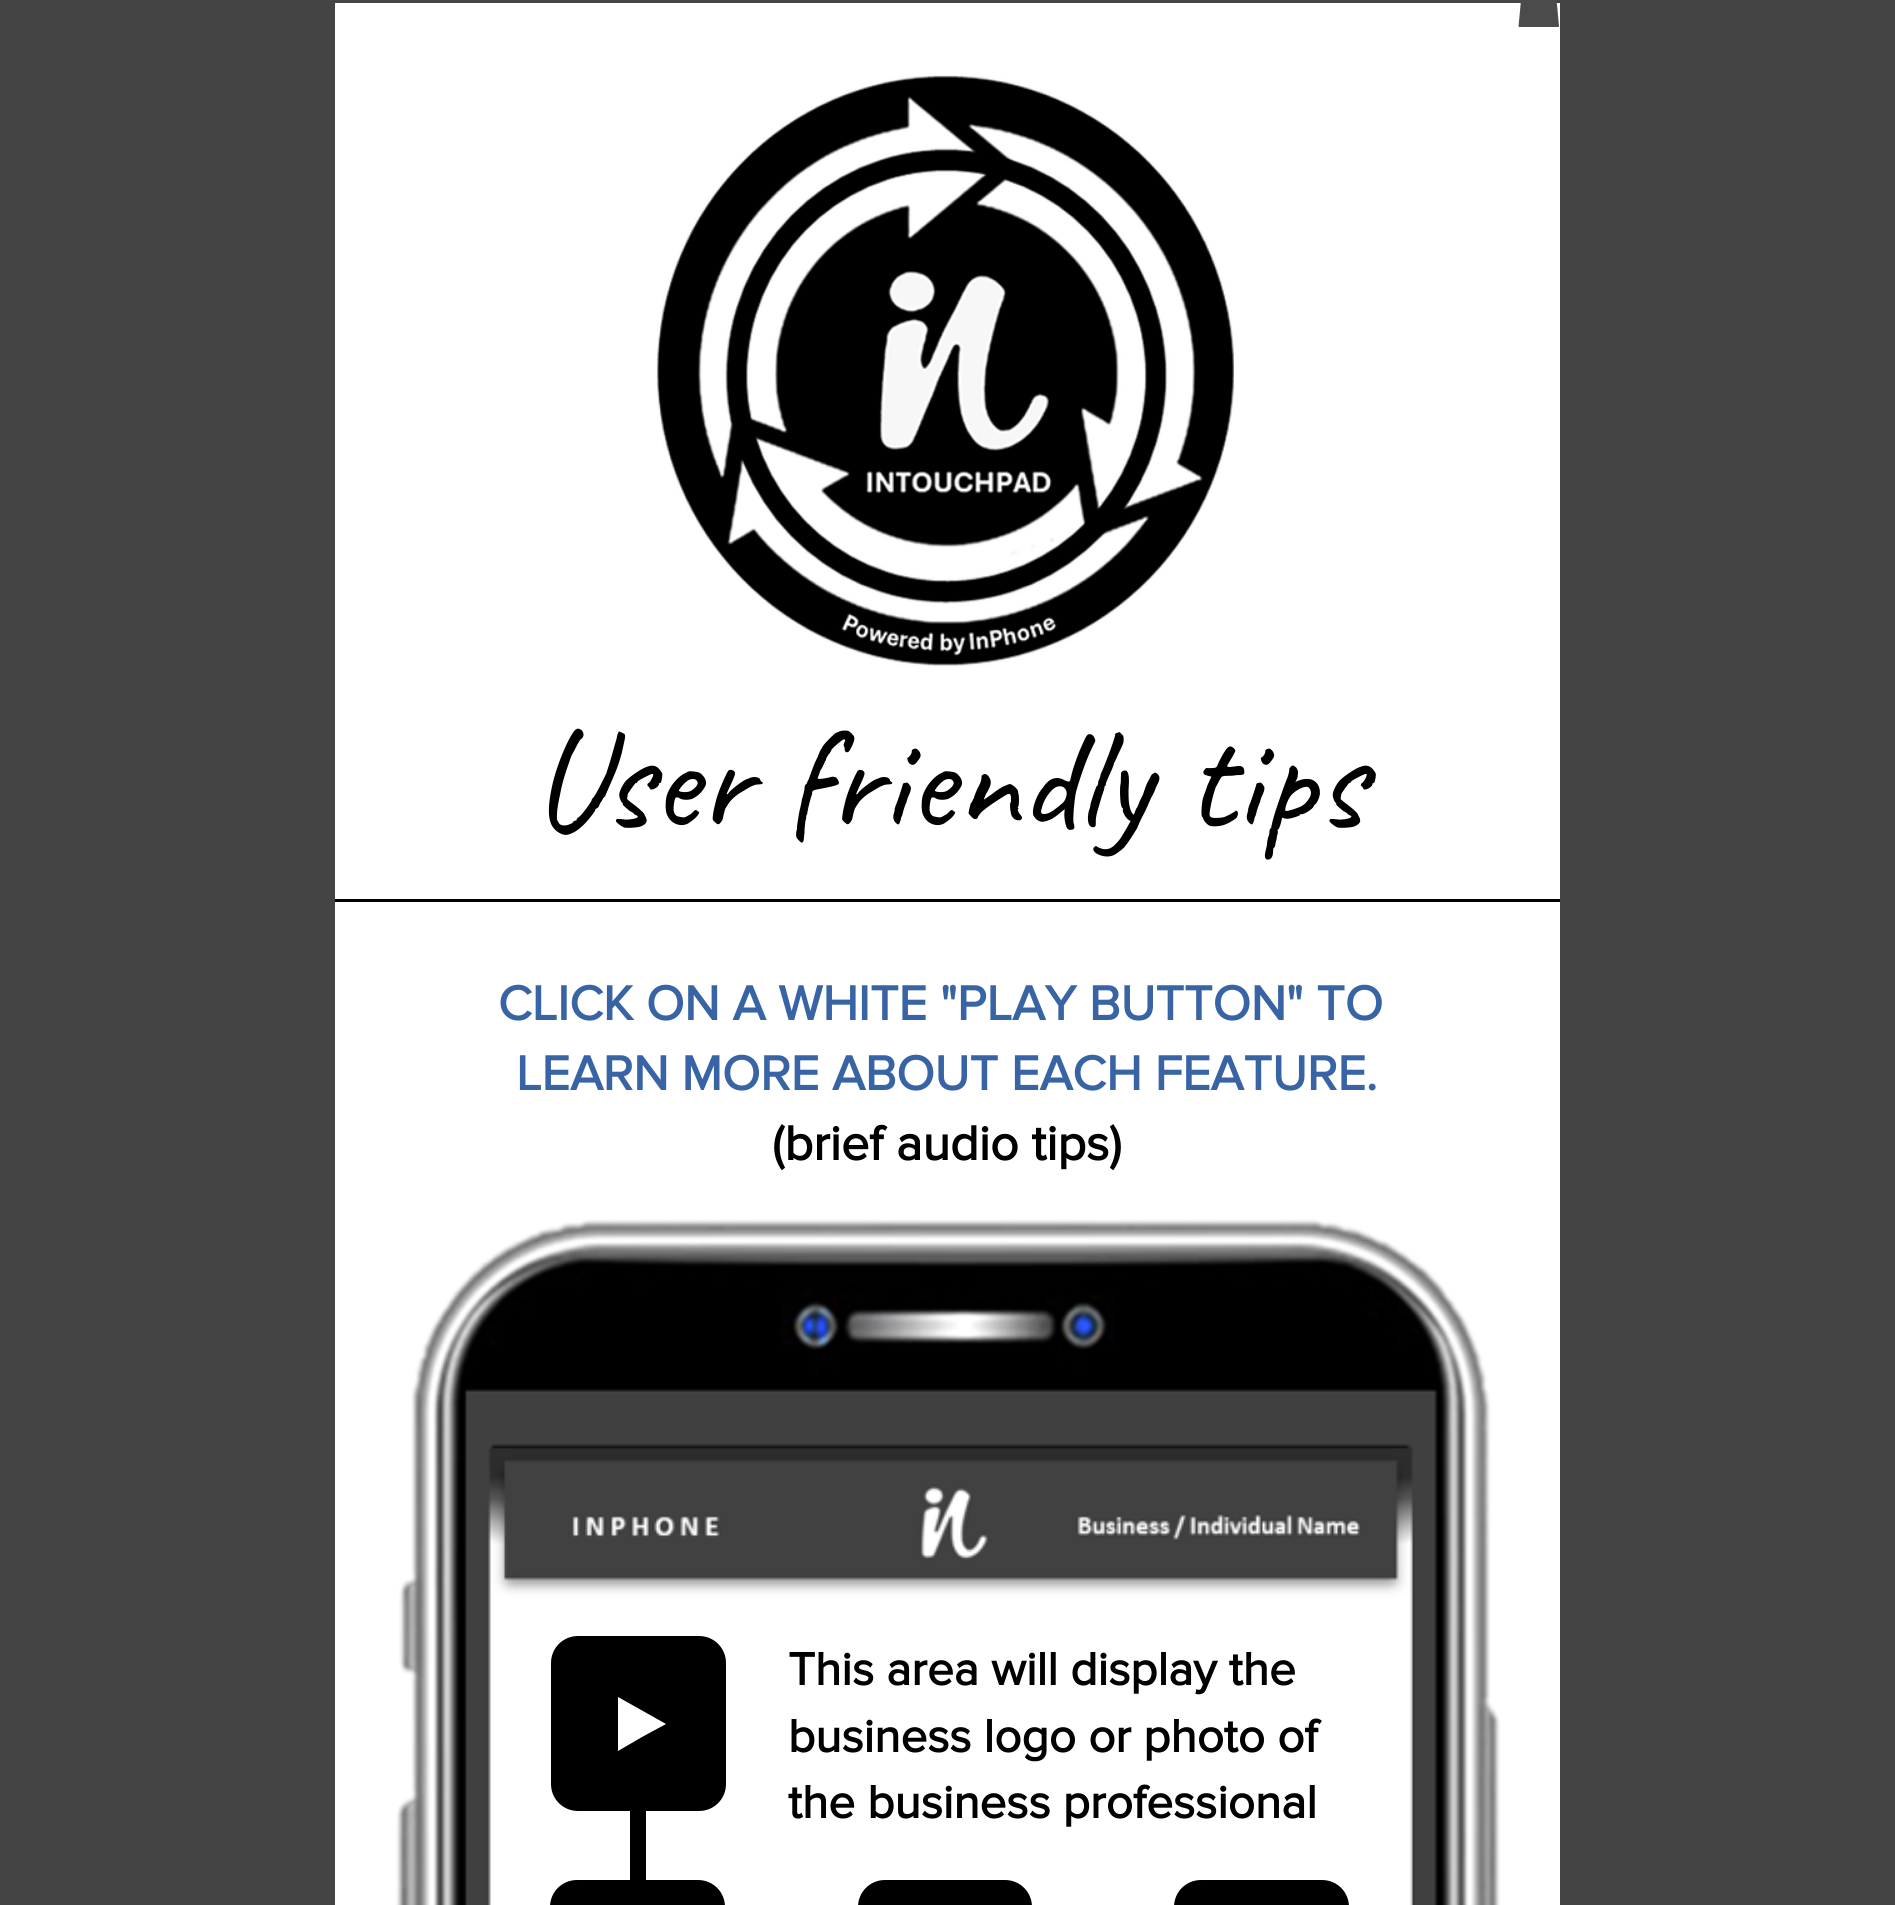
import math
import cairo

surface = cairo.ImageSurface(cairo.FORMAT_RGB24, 1895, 1905)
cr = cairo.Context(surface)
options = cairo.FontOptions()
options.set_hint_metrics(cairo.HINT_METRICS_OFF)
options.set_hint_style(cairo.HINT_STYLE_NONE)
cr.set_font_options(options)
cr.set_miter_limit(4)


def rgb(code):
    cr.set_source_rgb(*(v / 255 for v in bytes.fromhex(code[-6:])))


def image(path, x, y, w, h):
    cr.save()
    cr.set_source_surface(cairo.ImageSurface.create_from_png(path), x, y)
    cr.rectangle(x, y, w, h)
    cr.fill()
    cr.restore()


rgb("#444444")
cr.paint()
rgb("#ffffff")
cr.rectangle(335, 3, 1225, 1902)
cr.fill()
image("img/1.png", 1518, 0, 41, 27)
image("img/2.png", 656, 75, 578, 592)
rgb("#000000")
cr.rectangle(335, 899, 1225, 3)
cr.fill()
image("img/3.png", 396, 1219, 1104, 686)
cr.new_path()
cr.move_to(642, 1737)
cr.line_to(618, 1751)
cr.line_to(618, 1697)
cr.line_to(666, 1724)
cr.close_path()
cr.move_to(699, 1636)
cr.line_to(578, 1636)
cr.curve_to(563, 1636, 551, 1648, 551, 1663)
cr.line_to(551, 1784)
cr.curve_to(551, 1799, 563, 1811, 578, 1811)
cr.line_to(699, 1811)
cr.curve_to(714, 1811, 726, 1799, 726, 1784)
cr.line_to(726, 1663)
cr.curve_to(726, 1648, 714, 1636, 699, 1636)
cr.close_path()
cr.fill()
cr.rectangle(630, 1811, 16, 69)
cr.fill()
cr.new_path()
cr.move_to(641, 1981)
cr.line_to(617, 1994)
cr.line_to(617, 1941)
cr.line_to(664, 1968)
cr.close_path()
cr.move_to(698, 1880)
cr.line_to(577, 1880)
cr.curve_to(562, 1880, 550, 1892, 550, 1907)
cr.line_to(550, 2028)
cr.curve_to(550, 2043, 562, 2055, 577, 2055)
cr.line_to(698, 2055)
cr.curve_to(713, 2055, 725, 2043, 725, 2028)
cr.line_to(725, 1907)
cr.curve_to(725, 1892, 713, 1880, 698, 1880)
cr.close_path()
cr.fill()
cr.new_path()
cr.move_to(948, 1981)
cr.line_to(925, 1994)
cr.line_to(925, 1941)
cr.line_to(972, 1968)
cr.close_path()
cr.move_to(1005, 1880)
cr.line_to(885, 1880)
cr.curve_to(870, 1880, 858, 1892, 858, 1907)
cr.line_to(858, 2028)
cr.curve_to(858, 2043, 870, 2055, 885, 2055)
cr.line_to(1005, 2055)
cr.curve_to(1020, 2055, 1032, 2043, 1032, 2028)
cr.line_to(1032, 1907)
cr.curve_to(1032, 1892, 1020, 1880, 1005, 1880)
cr.close_path()
cr.fill()
cr.new_path()
cr.move_to(1264, 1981)
cr.line_to(1241, 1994)
cr.line_to(1241, 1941)
cr.line_to(1288, 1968)
cr.close_path()
cr.move_to(1322, 1880)
cr.line_to(1201, 1880)
cr.curve_to(1186, 1880, 1174, 1892, 1174, 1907)
cr.line_to(1174, 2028)
cr.curve_to(1174, 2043, 1186, 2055, 1201, 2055)
cr.line_to(1322, 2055)
cr.curve_to(1337, 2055, 1349, 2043, 1349, 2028)
cr.line_to(1349, 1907)
cr.curve_to(1349, 1892, 1337, 1880, 1322, 1880)
cr.close_path()
cr.fill()
cr.select_font_face("Caveat")
cr.set_font_size(145)
cr.move_to(531, 827)
cr.show_text("User friendly tips")
cr.select_font_face("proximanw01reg", cairo.FONT_SLANT_NORMAL, cairo.FONT_WEIGHT_BOLD)
cr.set_font_size(50)
rgb("#3864a6")
cr.move_to(498, 1020)
cr.show_text("CLICK ON A WHITE \"PLAY BUTTON\" TO")
cr.move_to(516, 1090)
cr.show_text("LEARN MORE ABOUT EACH FEATURE.")
rgb("#000000")
cr.move_to(772, 1160)
cr.show_text("(brief audio tips)")
cr.set_font_size(47.5)
for x, y, s in [
    (788, 1685, "This area will display the"),
    (788, 1752, "business logo or photo of"),
    (788, 1818, "the business professional"),
]:
    cr.move_to(x, y)
    cr.show_text(s)
surface.write_to_png("page.png")
